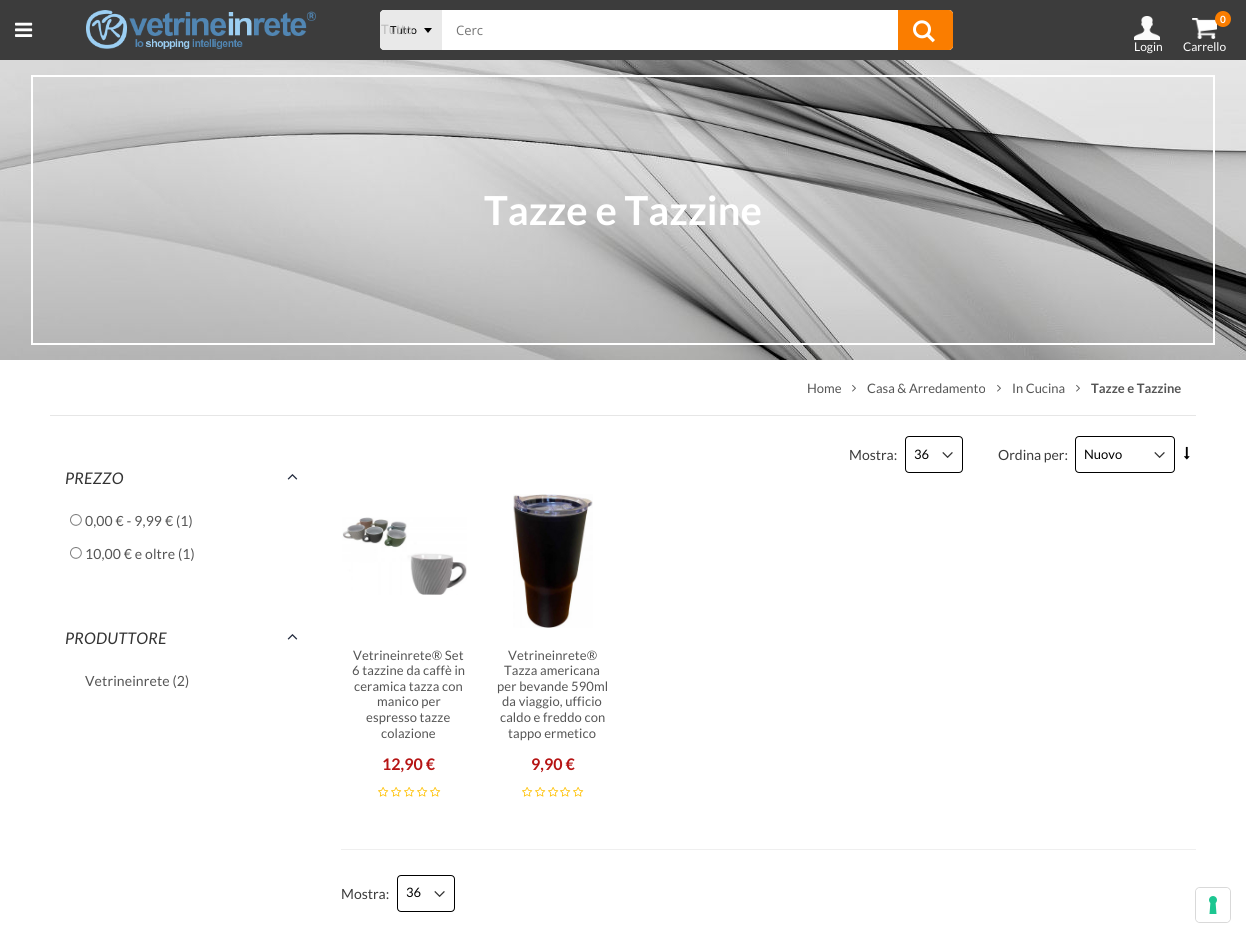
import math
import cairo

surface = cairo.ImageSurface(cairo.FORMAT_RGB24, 1246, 938)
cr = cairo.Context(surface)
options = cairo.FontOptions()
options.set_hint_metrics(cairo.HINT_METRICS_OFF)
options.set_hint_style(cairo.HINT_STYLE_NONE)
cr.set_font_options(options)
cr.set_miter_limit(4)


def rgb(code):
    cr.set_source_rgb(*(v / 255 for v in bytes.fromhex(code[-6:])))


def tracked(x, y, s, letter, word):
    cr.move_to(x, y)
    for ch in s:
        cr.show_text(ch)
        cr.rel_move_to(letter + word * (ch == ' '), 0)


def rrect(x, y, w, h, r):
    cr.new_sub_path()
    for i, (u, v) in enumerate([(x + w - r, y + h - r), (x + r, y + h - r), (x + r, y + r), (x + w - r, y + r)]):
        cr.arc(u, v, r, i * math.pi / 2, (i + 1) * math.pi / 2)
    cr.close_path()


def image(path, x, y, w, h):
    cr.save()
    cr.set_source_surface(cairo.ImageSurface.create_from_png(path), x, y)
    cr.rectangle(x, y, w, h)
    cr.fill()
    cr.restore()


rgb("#ffffff")
cr.paint()
rgb("#3c3c3c")
cr.rectangle(0, 0, 1246, 60)
cr.fill()
image("img/1.png", 15, 22, 18, 15)
image("img/2.png", 86, 10, 230, 39)
rgb("#ffffff")
rrect(380, 10, 573, 40, 4)
cr.fill()
rgb("#e9e9e9")
cr.new_path()
cr.move_to(384, 10)
cr.line_to(442, 10)
cr.line_to(442, 50)
cr.line_to(384, 50)
cr.curve_to(382, 50, 380, 48, 380, 46)
cr.line_to(380, 14)
cr.curve_to(380, 12, 382, 10, 384, 10)
cr.close_path()
cr.fill()
rgb("#000000")
cr.new_path()
cr.move_to(424, 28)
cr.line_to(432, 28)
cr.line_to(428, 33)
cr.close_path()
cr.fill()
rgb("#fa7d00")
cr.new_path()
cr.move_to(898, 10)
cr.line_to(949, 10)
cr.curve_to(951, 10, 953, 12, 953, 14)
cr.line_to(953, 46)
cr.curve_to(953, 48, 951, 50, 949, 50)
cr.line_to(898, 50)
cr.close_path()
cr.fill()
image("img/3.png", 913, 20, 22, 23)
image("img/4.png", 1134, 16, 26, 24)
image("img/5.png", 1192, 18, 25, 21)
cr.arc(1223, 19, 8, 0, 2 * math.pi)
cr.fill()
image("img/6.png", 0, 60, 1246, 300)
cr.rectangle(32, 76, 1182, 268)
rgb("#ffffff")
cr.stroke()
rgb("#e6e6e6")
cr.rectangle(50, 415, 1146, 1)
cr.fill()
image("img/7.png", 852, 384, 4, 8)
image("img/7.png", 997, 384, 4, 8)
image("img/7.png", 1076, 384, 4, 8)
image("img/8.png", 287, 474, 11, 6)
image("img/9.png", 70, 514, 12, 12)
image("img/9.png", 70, 547, 12, 12)
image("img/8.png", 287, 634, 11, 6)
image("img/10.png", 942, 452, 11, 6)
rrect(905.5, 436.5, 57, 36, 3.5)
rgb("#000000")
cr.set_line_width(1)
cr.stroke()
image("img/10.png", 1154, 452, 11, 6)
rrect(1075.5, 436.5, 99, 36, 3.5)
cr.stroke()
image("img/11.png", 1184, 446, 6, 14)
image("img/12.png", 342, 517, 125, 78)
image("img/13.png", 378, 787, 11, 10)
image("img/13.png", 391, 787, 11, 10)
image("img/13.png", 404, 787, 11, 10)
image("img/13.png", 417, 787, 11, 10)
image("img/13.png", 430, 787, 11, 10)
image("img/14.png", 513, 494, 80, 134)
image("img/13.png", 522, 787, 11, 10)
image("img/13.png", 535, 787, 11, 10)
image("img/13.png", 548, 787, 11, 10)
image("img/13.png", 560, 787, 11, 10)
image("img/13.png", 573, 787, 11, 10)
rgb("#efefef")
cr.rectangle(341, 849, 855, 1)
cr.fill()
image("img/10.png", 434, 891, 11, 6)
rrect(397.5, 875.5, 57, 36, 3.5)
rgb("#000000")
cr.stroke()
rrect(1195.5, 887.5, 35, 35, 4.5)
rgb("#d9d9d9")
cr.stroke()
rgb("#ffffff")
rrect(1196, 888, 34, 34, 4)
cr.fill()
image("img/15.png", 1209, 896, 8, 18)
cr.select_font_face("Lato")
cr.set_font_size(11)
rgb("#000000")
cr.move_to(390, 34)
cr.show_text("Tutto")
cr.set_font_size(13)
rgb("#bbbbbb")
cr.move_to(381, 34)
cr.show_text("Tutto")
cr.select_font_face("Open Sans")
rgb("#757575")
cr.move_to(456, 35)
cr.show_text("Cerc")
cr.select_font_face("Lato")
cr.set_font_size(12)
rgb("#ffffff")
cr.move_to(1134, 51)
cr.show_text("Login")
cr.select_font_face("Lato", cairo.FONT_SLANT_NORMAL, cairo.FONT_WEIGHT_BOLD)
cr.set_font_size(10)
cr.move_to(1220, 23)
cr.show_text("0")
cr.select_font_face("Lato")
cr.set_font_size(12)
cr.move_to(1183, 51)
cr.show_text("Carrello")
cr.select_font_face("Lato", cairo.FONT_SLANT_NORMAL, cairo.FONT_WEIGHT_BOLD)
cr.set_font_size(40)
cr.move_to(484, 225)
cr.show_text("Tazze e Tazzine")
cr.select_font_face("Lato")
cr.set_font_size(13)
rgb("#555555")
for x, y, s in [
    (807, 393, "Home"),
    (867, 393, "Casa & Arredamento"),
    (1012, 393, "In Cucina"),
]:
    cr.move_to(x, y)
    cr.show_text(s)
cr.select_font_face("Lato", cairo.FONT_SLANT_NORMAL, cairo.FONT_WEIGHT_BOLD)
cr.move_to(1091, 393)
cr.show_text("Tazze e Tazzine")
cr.select_font_face("Lato", cairo.FONT_SLANT_ITALIC)
cr.set_font_size(16)
rgb("#333333")
tracked(65, 484, "PREZZO", 0.25, 0)
cr.select_font_face("Lato")
cr.set_font_size(14)
rgb("#555555")
tracked(85, 526, "0,00 € - 9,99 € (1)", 0.1, 0)
tracked(85, 559, "10,00 € e oltre (1)", 0.1, 0)
cr.select_font_face("Lato", cairo.FONT_SLANT_ITALIC)
cr.set_font_size(16)
rgb("#333333")
tracked(65, 644, "PRODUTTORE", 0.25, 0)
cr.select_font_face("Lato")
cr.set_font_size(14)
rgb("#555555")
tracked(85, 686, "Vetrineinrete (2)", 0.1, 0)
rgb("#3c3c3c")
cr.move_to(849, 460)
cr.show_text("Mostra:")
cr.set_font_size(13)
rgb("#000000")
cr.move_to(914, 459)
cr.show_text("36")
cr.set_font_size(14)
rgb("#3c3c3c")
cr.move_to(998, 460)
cr.show_text("Ordina per:")
cr.set_font_size(13)
rgb("#000000")
cr.move_to(1084, 459)
cr.show_text("Nuovo")
rgb("#555555")
for x, y, s in [
    (353, 660, "Vetrineinrete® Set"),
    (352, 675, "6 tazzine da caffè in"),
    (354, 691, "ceramica tazza con"),
    (377, 706, "manico per"),
    (366, 722, "espresso tazze"),
    (381, 738, "colazione"),
]:
    tracked(x, y, s, 0.1, 0)
cr.select_font_face("Lato", cairo.FONT_SLANT_NORMAL, cairo.FONT_WEIGHT_BOLD)
cr.set_font_size(16)
rgb("#b61414")
cr.move_to(382, 770)
cr.show_text("12,90 €")
cr.select_font_face("Lato")
cr.set_font_size(13)
rgb("#555555")
for x, y, s in [
    (508, 660, "Vetrineinrete®"),
    (504, 675, "Tazza americana"),
    (497, 691, "per bevande 590ml"),
    (502, 706, "da viaggio, ufficio"),
    (500, 722, "caldo e freddo con"),
    (508, 738, "tappo ermetico"),
]:
    tracked(x, y, s, 0.1, 0)
cr.select_font_face("Lato", cairo.FONT_SLANT_NORMAL, cairo.FONT_WEIGHT_BOLD)
cr.set_font_size(16)
rgb("#b61414")
cr.move_to(531, 770)
cr.show_text("9,90 €")
cr.select_font_face("Lato")
cr.set_font_size(14)
rgb("#3c3c3c")
cr.move_to(341, 899)
cr.show_text("Mostra:")
cr.set_font_size(13)
rgb("#000000")
cr.move_to(406, 897)
cr.show_text("36")
surface.write_to_png("page.png")
